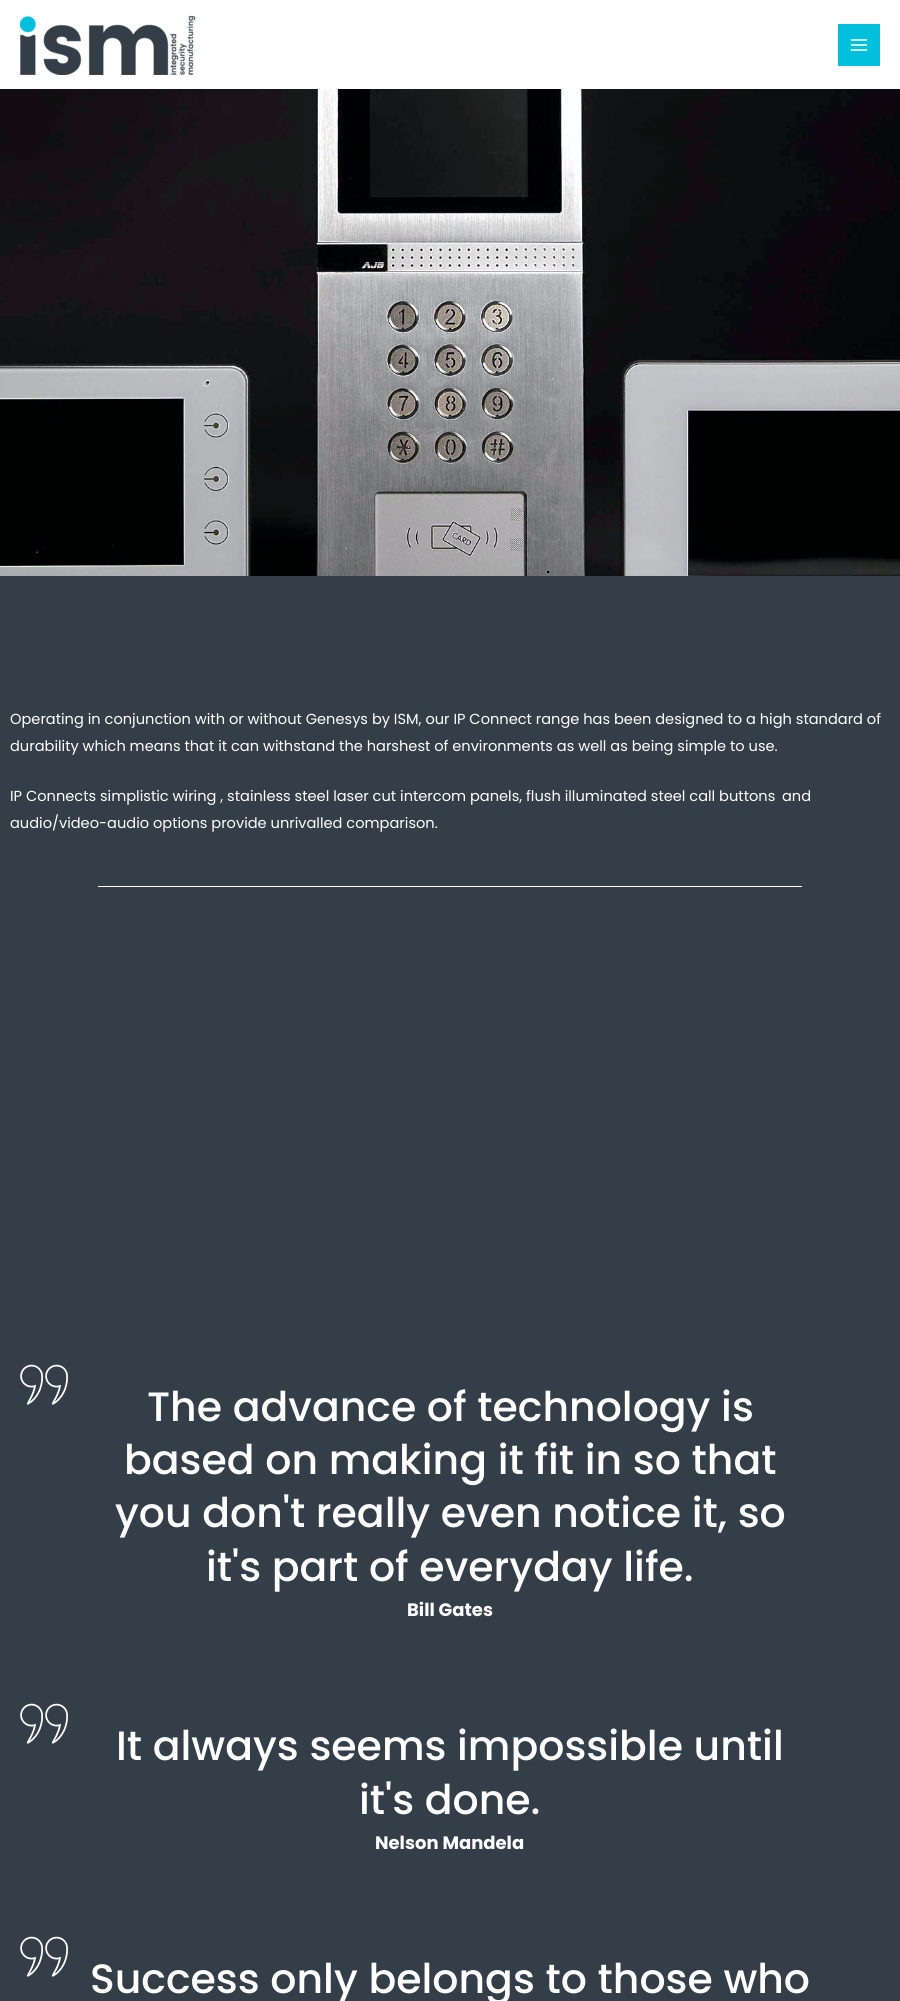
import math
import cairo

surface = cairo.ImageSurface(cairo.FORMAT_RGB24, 900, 2001)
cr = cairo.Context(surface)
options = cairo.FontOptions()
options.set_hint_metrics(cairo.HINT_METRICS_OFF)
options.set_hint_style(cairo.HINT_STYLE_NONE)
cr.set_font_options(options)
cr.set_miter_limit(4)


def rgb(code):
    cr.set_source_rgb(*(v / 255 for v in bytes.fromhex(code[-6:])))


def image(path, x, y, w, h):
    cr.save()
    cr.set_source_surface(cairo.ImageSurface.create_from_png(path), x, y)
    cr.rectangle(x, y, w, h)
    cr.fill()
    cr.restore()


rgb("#333e48")
cr.paint()
rgb("#ffffff")
cr.rectangle(0, 0, 900, 89)
cr.fill()
image("img/1.png", 20, 15, 176, 60)
rgb("#00c0de")
cr.rectangle(838, 24, 42, 42)
cr.fill()
image("img/2.png", 850, 39, 18, 12)
image("img/3.png", 0, 89, 900, 487)
rgb("#ffffff")
cr.rectangle(98, 886, 704, 1)
cr.fill()
image("img/4.png", 20, 1364, 48, 41)
image("img/4.png", 20, 1703, 48, 41)
image("img/4.png", 20, 1936, 48, 41)
cr.select_font_face("Poppins")
cr.set_font_size(14.6)
for x, y, s in [
    (10, 724, "Operating in conjunction with or without Genesys by ISM, our IP Connect range has been designed to a high standard of"),
    (10, 751, "durability which means that it can withstand the harshest of environments as well as being simple to use."),
    (10, 801, "IP Connects simplistic wiring , stainless steel laser cut intercom panels, flush illuminated steel call buttons"),
    (782, 801, "and"),
    (10, 828, "audio/video-audio options provide unrivalled comparison."),
]:
    cr.move_to(x, y)
    cr.show_text(s)
cr.select_font_face("Poppins Medium")
cr.set_font_size(41)
for x, y, s in [
    (147, 1421, "The advance of technology is"),
    (124, 1474, "based on making it fit in so that"),
    (115, 1527, "you don't really even notice it, so"),
    (206, 1581, "it's part of everyday life."),
]:
    cr.move_to(x, y)
    cr.show_text(s)
cr.select_font_face("Poppins", cairo.FONT_SLANT_NORMAL, cairo.FONT_WEIGHT_BOLD)
cr.set_font_size(18)
cr.move_to(407, 1616)
cr.show_text("Bill Gates")
cr.select_font_face("Poppins Medium")
cr.set_font_size(41)
cr.move_to(116, 1760)
cr.show_text("It always seems impossible until")
cr.move_to(359, 1814)
cr.show_text("it's done.")
cr.select_font_face("Poppins", cairo.FONT_SLANT_NORMAL, cairo.FONT_WEIGHT_BOLD)
cr.set_font_size(18)
cr.move_to(375, 1849)
cr.show_text("Nelson Mandela")
cr.select_font_face("Poppins Medium")
cr.set_font_size(41)
cr.move_to(90, 1993)
cr.show_text("Success only belongs to those who")
surface.write_to_png("page.png")
